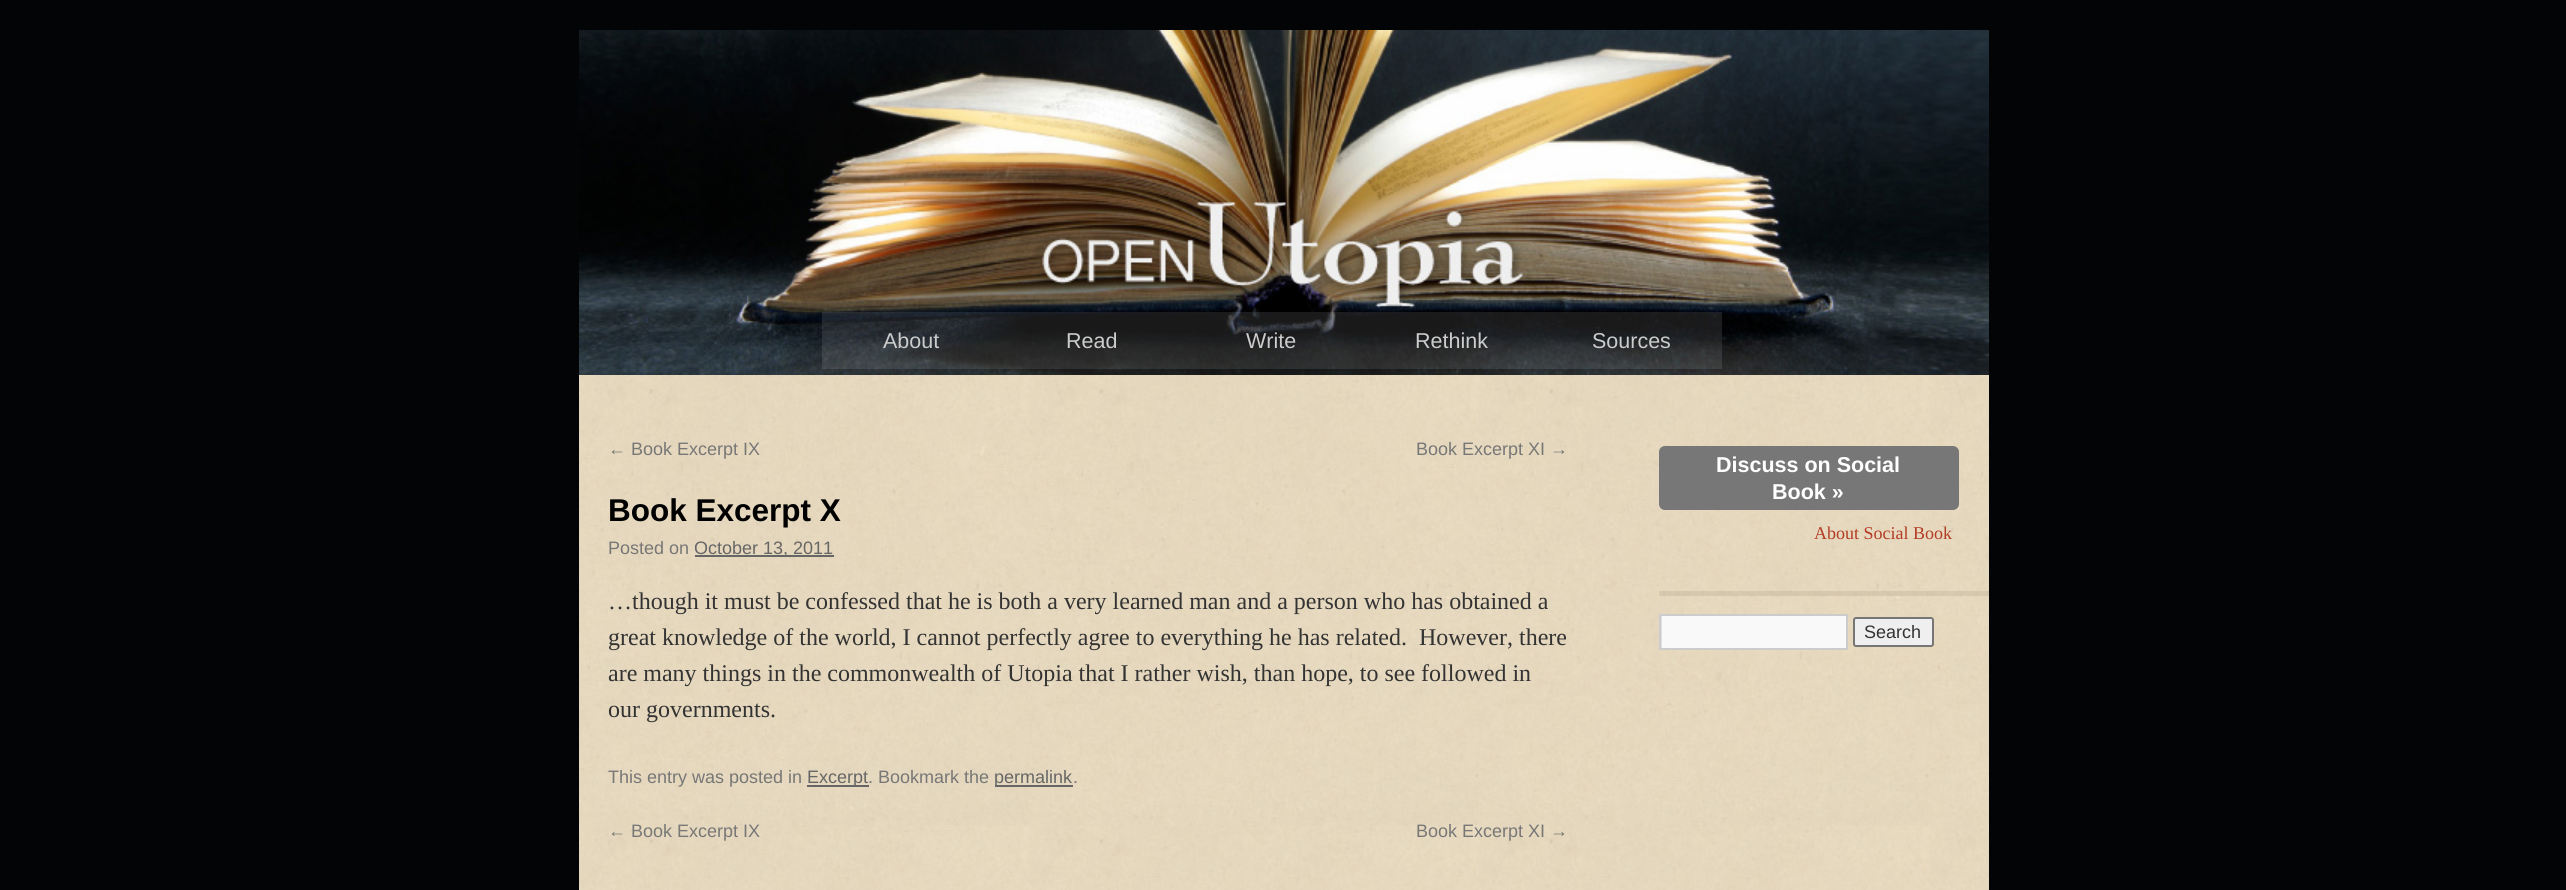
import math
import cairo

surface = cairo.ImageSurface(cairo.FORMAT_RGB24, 2566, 890)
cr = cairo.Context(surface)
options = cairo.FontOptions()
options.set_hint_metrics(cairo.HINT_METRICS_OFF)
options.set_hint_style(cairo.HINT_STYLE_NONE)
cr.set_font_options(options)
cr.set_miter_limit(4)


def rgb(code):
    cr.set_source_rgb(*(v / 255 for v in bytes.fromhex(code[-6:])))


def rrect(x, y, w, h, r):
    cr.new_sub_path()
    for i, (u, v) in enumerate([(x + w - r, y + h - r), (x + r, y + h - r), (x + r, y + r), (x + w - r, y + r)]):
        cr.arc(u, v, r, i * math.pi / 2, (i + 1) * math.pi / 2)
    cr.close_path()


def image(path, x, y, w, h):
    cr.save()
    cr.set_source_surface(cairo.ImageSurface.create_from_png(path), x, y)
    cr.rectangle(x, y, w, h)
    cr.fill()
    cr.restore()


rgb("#030405")
cr.paint()
image("img/1.png", 579, 30, 1410, 345)
image("img/2.png", 1021, 180, 526, 135)
cr.set_source_rgba(1, 1, 1, 0.1)
cr.rectangle(822, 312, 180, 57)
cr.fill()
cr.rectangle(1002, 312, 180, 57)
cr.fill()
cr.rectangle(1182, 312, 180, 57)
cr.fill()
cr.rectangle(1362, 312, 180, 57)
cr.fill()
cr.rectangle(1542, 312, 180, 57)
cr.fill()
image("img/3.png", 579, 375, 1410, 515)
for x, y, w, h, color in [
    (695, 555, 139, 2, "#666666"),
    (807, 785, 62, 2, "#666666"),
    (995, 785, 78, 2, "#666666"),
]:
    rgb(color)
    cr.rectangle(x, y, w, h)
    cr.fill()
rgb("#777777")
rrect(1659, 446, 300, 64, 6)
cr.fill()
cr.set_source_rgba(0.235, 0.208, 0.184, 0.1)
cr.rectangle(1659, 591, 330, 5)
cr.fill()
rgb("#f9f9f9")
cr.rectangle(1662, 616, 184, 32)
cr.fill()
cr.save()
cr.rectangle(1661, 615, 186, 33)
cr.clip()
rgb("#e0e0e0")
cr.set_fill_rule(cairo.FILL_RULE_EVEN_ODD)
cr.new_path()
cr.move_to(1512, 466)
cr.line_to(1995, 466)
cr.line_to(1995, 796)
cr.line_to(1512, 796)
cr.close_path()
cr.move_to(1662, 616)
cr.line_to(1848, 616)
cr.line_to(1848, 650)
cr.line_to(1662, 650)
cr.close_path()
cr.fill()
cr.restore()
cr.rectangle(1660, 615, 187, 34)
rgb("#cccccc")
cr.stroke()
rgb("#efefef")
rrect(1854, 618, 79, 28, 2)
cr.fill_preserve()
rgb("#767676")
cr.stroke()
cr.select_font_face("Liberation Sans")
cr.set_font_size(21.5)
rgb("#cccccc")
for x, y, s in [
    (883, 348, "About"),
    (1066, 348, "Read"),
    (1246, 348, "Write"),
    (1415, 348, "Rethink"),
    (1592, 348, "Sources"),
]:
    cr.move_to(x, y)
    cr.show_text(s)
cr.set_font_size(18)
rgb("#777777")
cr.move_to(608, 455)
cr.show_text("← Book Excerpt IX")
cr.move_to(1416, 455)
cr.show_text("Book Excerpt XI →")
cr.select_font_face("Liberation Sans", cairo.FONT_SLANT_NORMAL, cairo.FONT_WEIGHT_BOLD)
cr.set_font_size(31.5)
rgb("#000000")
cr.move_to(608, 521)
cr.show_text("Book Excerpt X")
cr.select_font_face("Liberation Sans")
cr.set_font_size(18)
rgb("#777777")
cr.move_to(608, 554)
cr.show_text("Posted on")
rgb("#666666")
cr.move_to(694, 554)
cr.show_text("October 13, 2011")
cr.select_font_face("Liberation Serif")
cr.set_font_size(24)
rgb("#333333")
for x, y, s in [
    (608, 609, "…though it must be confessed that he is both a very learned man and a person who has obtained a"),
    (608, 645, "great knowledge of the world, I cannot perfectly agree to everything he has related.  However, there"),
    (608, 681, "are many things in the commonwealth of Utopia that I rather wish, than hope, to see followed in"),
    (608, 717, "our governments."),
]:
    cr.move_to(x, y)
    cr.show_text(s)
cr.select_font_face("Liberation Sans")
cr.set_font_size(18)
rgb("#777777")
cr.move_to(608, 783)
cr.show_text("This entry was posted in")
rgb("#666666")
cr.move_to(807, 783)
cr.show_text("Excerpt")
rgb("#777777")
cr.move_to(868, 783)
cr.show_text(". Bookmark the")
rgb("#666666")
cr.move_to(994, 783)
cr.show_text("permalink")
rgb("#777777")
for x, y, s in [
    (1073, 783, "."),
    (608, 837, "← Book Excerpt IX"),
    (1416, 837, "Book Excerpt XI →"),
]:
    cr.move_to(x, y)
    cr.show_text(s)
cr.select_font_face("Liberation Sans", cairo.FONT_SLANT_NORMAL, cairo.FONT_WEIGHT_BOLD)
cr.set_font_size(21.5)
rgb("#ffffff")
cr.move_to(1716, 472)
cr.show_text("Discuss on Social")
cr.move_to(1772, 499)
cr.show_text("Book »")
cr.select_font_face("Liberation Serif")
cr.set_font_size(18)
rgb("#b23b24")
cr.move_to(1814, 539)
cr.show_text("About Social Book")
cr.select_font_face("Liberation Sans")
rgb("#333333")
cr.move_to(1864, 638)
cr.show_text("Search")
surface.write_to_png("page.png")
